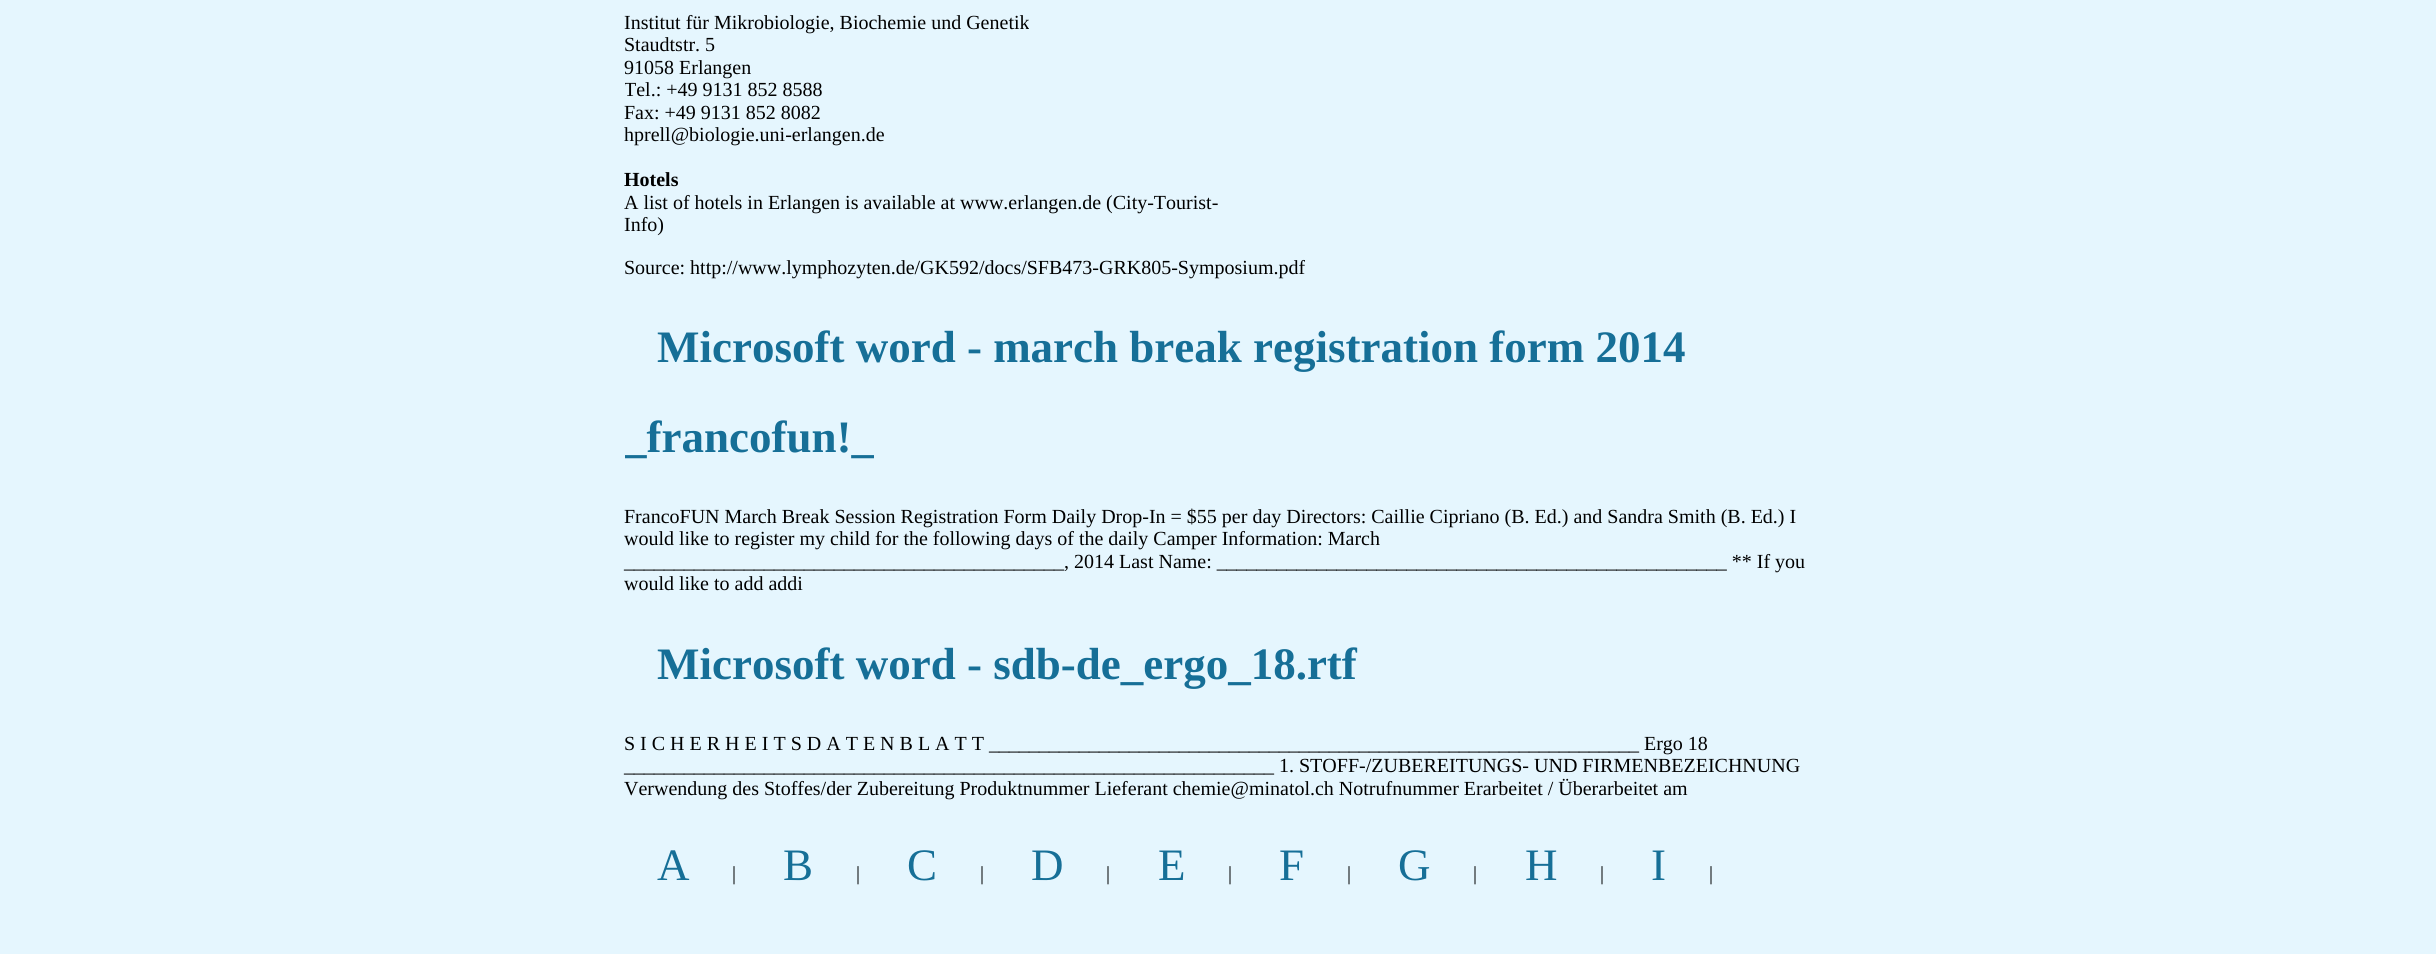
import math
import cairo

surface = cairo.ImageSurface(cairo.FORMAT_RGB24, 2436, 954)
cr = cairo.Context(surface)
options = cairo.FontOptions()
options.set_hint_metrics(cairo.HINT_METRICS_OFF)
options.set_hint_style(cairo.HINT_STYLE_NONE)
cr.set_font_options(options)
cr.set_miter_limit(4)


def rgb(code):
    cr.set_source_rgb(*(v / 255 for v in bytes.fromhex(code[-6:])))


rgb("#e5f6fe")
cr.paint()
cr.select_font_face("Liberation Serif")
cr.set_font_size(20)
rgb("#000000")
for x, y, s in [
    (624, 29, "Institut für Mikrobiologie, Biochemie und Genetik"),
    (624, 51, "Staudtstr. 5"),
    (624, 74, "91058 Erlangen"),
]:
    cr.move_to(x, y)
    cr.show_text(s)
cr.save()
cr.rectangle(625, 0, 1188, 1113)
cr.clip()
cr.move_to(624, 96)
cr.show_text("Tel.: +49 9131 852 8588")
cr.restore()
cr.move_to(624, 119)
cr.show_text("Fax: +49 9131 852 8082")
cr.move_to(624, 141)
cr.show_text("hprell@biologie.uni-erlangen.de")
cr.select_font_face("Liberation Serif", cairo.FONT_SLANT_NORMAL, cairo.FONT_WEIGHT_BOLD)
cr.move_to(624, 186)
cr.show_text("Hotels")
cr.select_font_face("Liberation Serif")
for x, y, s in [
    (624, 209, "A list of hotels in Erlangen is available at www.erlangen.de (City-Tourist-"),
    (624, 231, "Info)"),
    (624, 274, "Source: http://www.lymphozyten.de/GK592/docs/SFB473-GRK805-Symposium.pdf"),
]:
    cr.move_to(x, y)
    cr.show_text(s)
cr.select_font_face("Liberation Serif", cairo.FONT_SLANT_NORMAL, cairo.FONT_WEIGHT_BOLD)
cr.set_font_size(45)
rgb("#166f97")
cr.move_to(657, 362)
cr.show_text("Microsoft word - march break registration form 2014")
cr.save()
cr.rectangle(625, 0, 1188, 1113)
cr.clip()
cr.move_to(624, 452)
cr.show_text("_francofun!_")
cr.restore()
cr.select_font_face("Liberation Serif")
cr.set_font_size(20)
rgb("#000000")
for x, y, s in [
    (624, 523, "FrancoFUN March Break Session Registration Form Daily Drop-In = $55 per day Directors: Caillie Cipriano (B. Ed.) and Sandra Smith (B. Ed.) I"),
    (624, 545, "would like to register my child for the following days of the daily Camper Information: March"),
    (624, 568, "____________________________________________, 2014 Last Name: ___________________________________________________ ** If you"),
    (624, 590, "would like to add addi"),
]:
    cr.move_to(x, y)
    cr.show_text(s)
cr.select_font_face("Liberation Serif", cairo.FONT_SLANT_NORMAL, cairo.FONT_WEIGHT_BOLD)
cr.set_font_size(45)
rgb("#166f97")
cr.move_to(657, 679)
cr.show_text("Microsoft word - sdb-de_ergo_18.rtf")
cr.select_font_face("Liberation Serif")
cr.set_font_size(20)
rgb("#000000")
for x, y, s in [
    (624, 750, "S I C H E R H E I T S D A T E N B L A T T _________________________________________________________________ Ergo 18"),
    (624, 772, "_________________________________________________________________ 1. STOFF-/ZUBEREITUNGS- UND FIRMENBEZEICHNUNG"),
    (624, 795, "Verwendung des Stoffes/der Zubereitung Produktnummer Lieferant chemie@minatol.ch Notrufnummer Erarbeitet / Überarbeitet am"),
]:
    cr.move_to(x, y)
    cr.show_text(s)
cr.set_font_size(45)
rgb("#166f97")
cr.move_to(657, 880)
cr.show_text("A")
cr.set_font_size(20)
rgb("#000000")
cr.move_to(732, 880)
cr.show_text("|")
cr.set_font_size(45)
rgb("#166f97")
cr.move_to(783, 880)
cr.show_text("B")
cr.set_font_size(20)
rgb("#000000")
cr.move_to(856, 880)
cr.show_text("|")
cr.set_font_size(45)
rgb("#166f97")
cr.move_to(907, 880)
cr.show_text("C")
cr.set_font_size(20)
rgb("#000000")
cr.move_to(980, 880)
cr.show_text("|")
cr.set_font_size(45)
rgb("#166f97")
cr.move_to(1031, 880)
cr.show_text("D")
cr.set_font_size(20)
rgb("#000000")
cr.move_to(1106, 880)
cr.show_text("|")
cr.set_font_size(45)
rgb("#166f97")
cr.move_to(1158, 880)
cr.show_text("E")
cr.set_font_size(20)
rgb("#000000")
cr.move_to(1228, 880)
cr.show_text("|")
cr.set_font_size(45)
rgb("#166f97")
cr.move_to(1279, 880)
cr.show_text("F")
cr.set_font_size(20)
rgb("#000000")
cr.move_to(1347, 880)
cr.show_text("|")
cr.set_font_size(45)
rgb("#166f97")
cr.move_to(1398, 880)
cr.show_text("G")
cr.set_font_size(20)
rgb("#000000")
cr.move_to(1473, 880)
cr.show_text("|")
cr.set_font_size(45)
rgb("#166f97")
cr.move_to(1525, 880)
cr.show_text("H")
cr.set_font_size(20)
rgb("#000000")
cr.move_to(1600, 880)
cr.show_text("|")
cr.set_font_size(45)
rgb("#166f97")
cr.move_to(1651, 880)
cr.show_text("I")
cr.set_font_size(20)
rgb("#000000")
cr.move_to(1709, 880)
cr.show_text("|")
surface.write_to_png("page.png")
